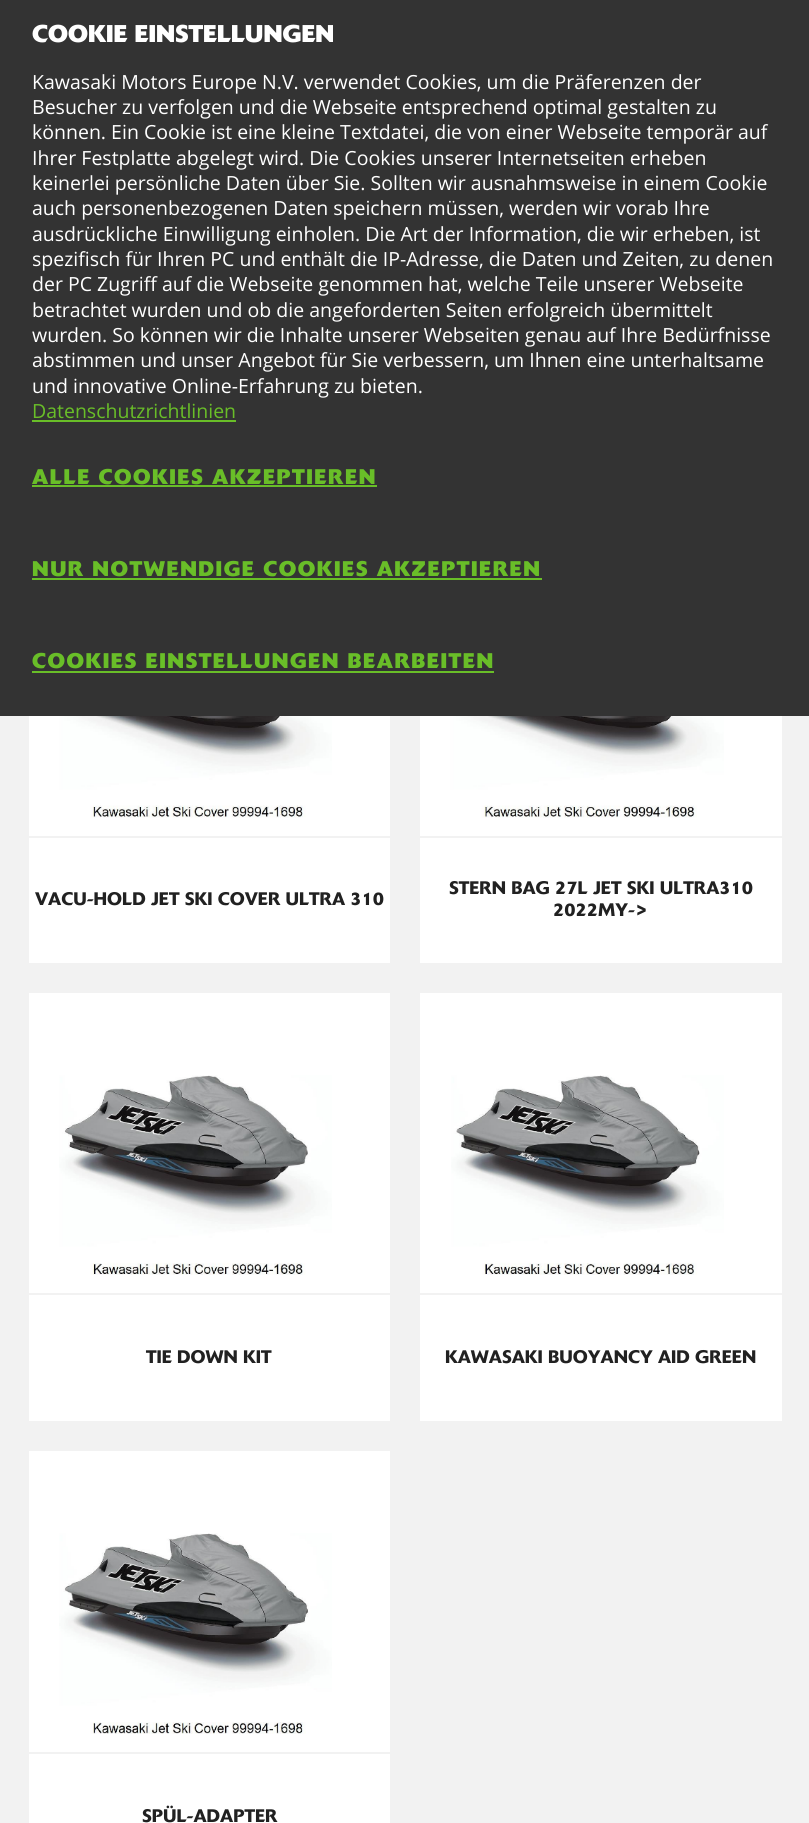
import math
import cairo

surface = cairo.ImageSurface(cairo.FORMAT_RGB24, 809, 1823)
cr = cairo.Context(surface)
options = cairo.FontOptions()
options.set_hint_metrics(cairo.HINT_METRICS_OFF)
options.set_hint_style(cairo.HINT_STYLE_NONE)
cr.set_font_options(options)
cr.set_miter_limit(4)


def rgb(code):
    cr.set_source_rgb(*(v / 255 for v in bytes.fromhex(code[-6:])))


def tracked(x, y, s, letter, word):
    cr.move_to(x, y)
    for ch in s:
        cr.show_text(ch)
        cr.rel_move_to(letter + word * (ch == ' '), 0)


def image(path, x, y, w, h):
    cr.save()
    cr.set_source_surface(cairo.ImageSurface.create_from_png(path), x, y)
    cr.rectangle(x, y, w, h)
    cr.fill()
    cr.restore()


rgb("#f2f2f2")
cr.paint()
for x, y, w, h, color in [
    (0, 0, 809, 716, "#333333"),
    (32, 420, 204, 2, "#69be28"),
    (32, 485, 345, 2, "#69be28"),
    (32, 578, 510, 2, "#69be28"),
    (32, 671, 462, 2, "#69be28"),
    (29, 716, 361, 247, "#ffffff"),
]:
    rgb(color)
    cr.rectangle(x, y, w, h)
    cr.fill()
image("img/1.png", 59, 716, 273, 102)
rgb("#f2f2f2")
cr.rectangle(29, 836, 361, 2)
cr.fill()
rgb("#ffffff")
cr.rectangle(420, 716, 362, 247)
cr.fill()
image("img/2.png", 450, 716, 274, 102)
rgb("#f2f2f2")
cr.rectangle(420, 836, 362, 2)
cr.fill()
rgb("#ffffff")
cr.rectangle(29, 993, 361, 428)
cr.fill()
image("img/3.png", 59, 1075, 273, 200)
rgb("#f2f2f2")
cr.rectangle(29, 1293, 361, 2)
cr.fill()
rgb("#ffffff")
cr.rectangle(420, 993, 362, 428)
cr.fill()
image("img/4.png", 451, 1075, 273, 200)
rgb("#f2f2f2")
cr.rectangle(420, 1293, 362, 2)
cr.fill()
rgb("#ffffff")
cr.rectangle(29, 1451, 361, 372)
cr.fill()
image("img/5.png", 59, 1533, 273, 201)
rgb("#f2f2f2")
cr.rectangle(29, 1752, 361, 2)
cr.fill()
cr.select_font_face("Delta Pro", cairo.FONT_SLANT_NORMAL, cairo.FONT_WEIGHT_BOLD)
cr.set_font_size(24)
rgb("#ffffff")
cr.move_to(32, 42)
cr.show_text("COOKIE EINSTELLUNGEN")
cr.select_font_face("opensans")
cr.set_font_size(19.5)
for x, y, s in [
    (32, 89, "Kawasaki Motors Europe N.V. verwendet Cookies, um die Präferenzen der"),
    (32, 114, "Besucher zu verfolgen und die Webseite entsprechend optimal gestalten zu"),
    (32, 139, "können. Ein Cookie ist eine kleine Textdatei, die von einer Webseite temporär auf"),
    (32, 165, "Ihrer Festplatte abgelegt wird. Die Cookies unserer Internetseiten erheben"),
    (32, 190, "keinerlei persönliche Daten über Sie. Sollten wir ausnahmsweise in einem Cookie"),
    (32, 215, "auch personenbezogenen Daten speichern müssen, werden wir vorab Ihre"),
    (32, 241, "ausdrückliche Einwilligung einholen. Die Art der Information, die wir erheben, ist"),
    (32, 266, "spezifisch für Ihren PC und enthält die IP-Adresse, die Daten und Zeiten, zu denen"),
    (32, 291, "der PC Zugriff auf die Webseite genommen hat, welche Teile unserer Webseite"),
    (32, 317, "betrachtet wurden und ob die angeforderten Seiten erfolgreich übermittelt"),
    (32, 342, "wurden. So können wir die Inhalte unserer Webseiten genau auf Ihre Bedürfnisse"),
    (32, 367, "abstimmen und unser Angebot für Sie verbessern, um Ihnen eine unterhaltsame"),
    (32, 393, "und innovative Online-Erfahrung zu bieten."),
]:
    cr.move_to(x, y)
    cr.show_text(s)
rgb("#69be28")
cr.move_to(32, 418)
cr.show_text("Datenschutzrichtlinien")
cr.select_font_face("Delta Pro", cairo.FONT_SLANT_NORMAL, cairo.FONT_WEIGHT_BOLD)
cr.set_font_size(21)
for x, y, s in [
    (32, 484, "ALLE COOKIES AKZEPTIEREN"),
    (32, 576, "NUR NOTWENDIGE COOKIES AKZEPTIEREN"),
    (32, 668, "COOKIES EINSTELLUNGEN BEARBEITEN"),
]:
    tracked(x, y, s, 1.5, 0)
cr.select_font_face("Delta Pro Medium")
cr.set_font_size(18)
rgb("#212121")
for x, y, s in [
    (35, 905, "VACU-HOLD JET SKI COVER ULTRA 310"),
    (449, 894, "STERN BAG 27L JET SKI ULTRA310"),
    (553, 916, "2022MY->"),
    (146, 1363, "TIE DOWN KIT"),
    (445, 1363, "KAWASAKI BUOYANCY AID GREEN"),
    (142, 1822, "SPÜL-ADAPTER"),
]:
    cr.move_to(x, y)
    cr.show_text(s)
surface.write_to_png("page.png")
